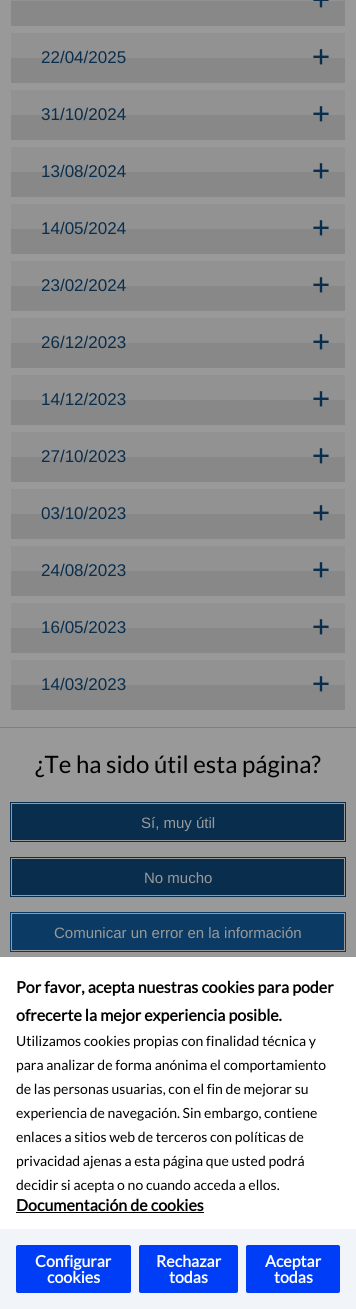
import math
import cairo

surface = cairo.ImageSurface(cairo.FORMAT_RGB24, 356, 1309)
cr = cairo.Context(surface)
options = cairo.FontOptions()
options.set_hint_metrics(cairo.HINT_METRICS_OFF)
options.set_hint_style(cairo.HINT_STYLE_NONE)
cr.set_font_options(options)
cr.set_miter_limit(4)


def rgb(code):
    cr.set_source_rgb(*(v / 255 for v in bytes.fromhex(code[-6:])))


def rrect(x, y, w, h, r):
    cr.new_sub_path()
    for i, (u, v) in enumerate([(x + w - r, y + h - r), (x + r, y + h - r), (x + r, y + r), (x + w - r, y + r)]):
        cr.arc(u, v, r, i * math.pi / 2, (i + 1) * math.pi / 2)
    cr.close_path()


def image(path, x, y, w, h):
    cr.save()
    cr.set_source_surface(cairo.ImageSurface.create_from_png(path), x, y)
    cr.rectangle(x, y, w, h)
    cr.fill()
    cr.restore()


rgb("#999999")
cr.paint()
rgb("#929292")
cr.rectangle(11, 0, 334, 1)
cr.fill()
rgb("#888888")
cr.rectangle(11, 1, 334, 25)
cr.fill()
image("img/1.png", 313, 0, 16, 8)
rgb("#929292")
cr.rectangle(11, 33, 334, 25)
cr.fill()
rgb("#888888")
cr.rectangle(11, 58, 334, 25)
cr.fill()
image("img/2.png", 313, 49, 16, 16)
rgb("#929292")
cr.rectangle(11, 90, 334, 25)
cr.fill()
rgb("#888888")
cr.rectangle(11, 115, 334, 25)
cr.fill()
image("img/2.png", 313, 106, 16, 16)
rgb("#929292")
cr.rectangle(11, 147, 334, 25)
cr.fill()
rgb("#888888")
cr.rectangle(11, 172, 334, 25)
cr.fill()
image("img/2.png", 313, 163, 16, 16)
rgb("#929292")
cr.rectangle(11, 204, 334, 25)
cr.fill()
rgb("#888888")
cr.rectangle(11, 229, 334, 25)
cr.fill()
image("img/2.png", 313, 220, 16, 16)
rgb("#929292")
cr.rectangle(11, 261, 334, 25)
cr.fill()
rgb("#888888")
cr.rectangle(11, 286, 334, 25)
cr.fill()
image("img/2.png", 313, 277, 16, 16)
rgb("#929292")
cr.rectangle(11, 318, 334, 25)
cr.fill()
rgb("#888888")
cr.rectangle(11, 343, 334, 25)
cr.fill()
image("img/2.png", 313, 334, 16, 16)
rgb("#929292")
cr.rectangle(11, 375, 334, 25)
cr.fill()
rgb("#888888")
cr.rectangle(11, 400, 334, 25)
cr.fill()
image("img/2.png", 313, 391, 16, 16)
rgb("#929292")
cr.rectangle(11, 432, 334, 25)
cr.fill()
rgb("#888888")
cr.rectangle(11, 457, 334, 25)
cr.fill()
image("img/2.png", 313, 448, 16, 16)
rgb("#929292")
cr.rectangle(11, 489, 334, 25)
cr.fill()
rgb("#888888")
cr.rectangle(11, 514, 334, 25)
cr.fill()
image("img/2.png", 313, 505, 16, 16)
rgb("#929292")
cr.rectangle(11, 546, 334, 25)
cr.fill()
rgb("#888888")
cr.rectangle(11, 571, 334, 25)
cr.fill()
image("img/2.png", 313, 562, 16, 16)
rgb("#929292")
cr.rectangle(11, 603, 334, 25)
cr.fill()
rgb("#888888")
cr.rectangle(11, 628, 334, 25)
cr.fill()
image("img/2.png", 313, 619, 16, 16)
rgb("#929292")
cr.rectangle(11, 660, 334, 25)
cr.fill()
rgb("#888888")
cr.rectangle(11, 685, 334, 25)
cr.fill()
image("img/2.png", 313, 676, 16, 16)
rgb("#808080")
cr.rectangle(0, 727, 356, 1)
cr.fill()
rgb("#092e4d")
cr.rectangle(10, 802, 336, 40)
cr.fill()
cr.rectangle(11.5, 803.5, 333, 37)
rgb("#999999")
cr.set_line_width(1)
cr.stroke()
rgb("#092e4d")
cr.rectangle(10, 857, 336, 40)
cr.fill()
cr.rectangle(11.5, 858.5, 333, 37)
rgb("#999999")
cr.stroke()
rgb("#0b3b64")
cr.rectangle(10, 912, 336, 40)
cr.fill()
cr.rectangle(11.5, 913.5, 333, 37)
rgb("#999999")
cr.stroke()
for x, y, w, h, color in [
    (0, 957, 356, 272, "#ffffff"),
    (16, 1212, 188, 1, "#000000"),
    (0, 1229, 356, 80, "#f1f5f9"),
]:
    rgb(color)
    cr.rectangle(x, y, w, h)
    cr.fill()
rgb("#003df6")
rrect(16, 1245, 115, 48, 2)
cr.fill()
rrect(139, 1245, 99, 48, 2)
cr.fill()
rrect(246, 1245, 94, 48, 2)
cr.fill()
cr.select_font_face("Liberation Sans")
cr.set_font_size(17)
rgb("#092e4d")
for x, y, s in [
    (41, 63, "22/04/2025"),
    (41, 120, "31/10/2024"),
    (41, 177, "13/08/2024"),
    (41, 234, "14/05/2024"),
    (41, 291, "23/02/2024"),
    (41, 348, "26/12/2023"),
    (41, 405, "14/12/2023"),
    (41, 462, "27/10/2023"),
    (41, 519, "03/10/2023"),
    (41, 576, "24/08/2023"),
    (41, 633, "16/05/2023"),
    (41, 690, "14/03/2023"),
]:
    cr.move_to(x, y)
    cr.show_text(s)
cr.select_font_face("Lato")
cr.set_font_size(24)
rgb("#000000")
cr.move_to(35, 773)
cr.show_text("¿Te ha sido útil esta página?")
cr.select_font_face("Liberation Sans")
cr.set_font_size(15)
rgb("#999999")
for x, y, s in [
    (141, 828, "Sí, muy útil"),
    (144, 883, "No mucho"),
    (54, 938, "Comunicar un error en la información"),
]:
    cr.move_to(x, y)
    cr.show_text(s)
cr.select_font_face("Lato", cairo.FONT_SLANT_NORMAL, cairo.FONT_WEIGHT_BOLD)
cr.set_font_size(16)
rgb("#000000")
cr.move_to(16, 993)
cr.show_text("Por favor, acepta nuestras cookies para poder")
cr.move_to(16, 1021)
cr.show_text("ofrecerte la mejor experiencia posible.")
cr.select_font_face("Lato")
cr.set_font_size(14)
for x, y, s in [
    (16, 1046, "Utilizamos cookies propias con finalidad técnica y"),
    (16, 1070, "para analizar de forma anónima el comportamiento"),
    (16, 1094, "de las personas usuarias, con el fin de mejorar su"),
    (16, 1118, "experiencia de navegación. Sin embargo, contiene"),
    (16, 1142, "enlaces a sitios web de terceros con políticas de"),
    (16, 1166, "privacidad ajenas a esta página que usted podrá"),
    (16, 1190, "decidir si acepta o no cuando acceda a ellos."),
]:
    cr.move_to(x, y)
    cr.show_text(s)
cr.select_font_face("Lato", cairo.FONT_SLANT_NORMAL, cairo.FONT_WEIGHT_BOLD)
cr.set_font_size(16)
cr.move_to(16, 1211)
cr.show_text("Documentación de cookies")
rgb("#ffffff")
for x, y, s in [
    (35, 1267, "Configurar"),
    (47, 1283, "cookies"),
    (156, 1267, "Rechazar"),
    (169, 1283, "todas"),
    (265, 1267, "Aceptar"),
    (274, 1283, "todas"),
]:
    cr.move_to(x, y)
    cr.show_text(s)
surface.write_to_png("page.png")
